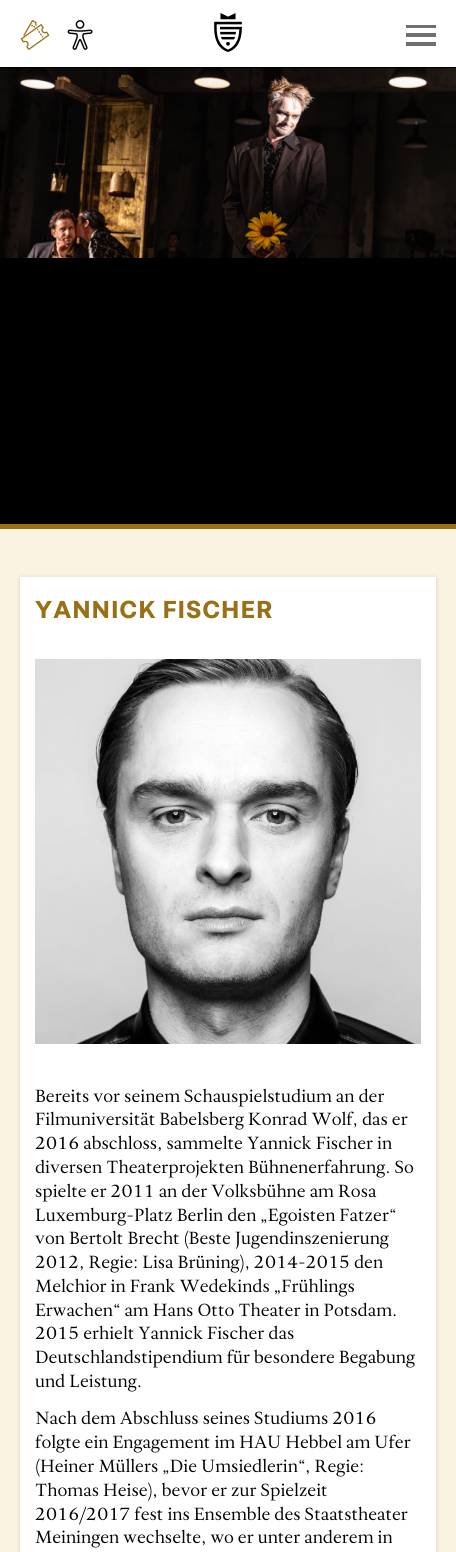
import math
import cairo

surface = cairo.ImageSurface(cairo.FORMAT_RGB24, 456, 1552)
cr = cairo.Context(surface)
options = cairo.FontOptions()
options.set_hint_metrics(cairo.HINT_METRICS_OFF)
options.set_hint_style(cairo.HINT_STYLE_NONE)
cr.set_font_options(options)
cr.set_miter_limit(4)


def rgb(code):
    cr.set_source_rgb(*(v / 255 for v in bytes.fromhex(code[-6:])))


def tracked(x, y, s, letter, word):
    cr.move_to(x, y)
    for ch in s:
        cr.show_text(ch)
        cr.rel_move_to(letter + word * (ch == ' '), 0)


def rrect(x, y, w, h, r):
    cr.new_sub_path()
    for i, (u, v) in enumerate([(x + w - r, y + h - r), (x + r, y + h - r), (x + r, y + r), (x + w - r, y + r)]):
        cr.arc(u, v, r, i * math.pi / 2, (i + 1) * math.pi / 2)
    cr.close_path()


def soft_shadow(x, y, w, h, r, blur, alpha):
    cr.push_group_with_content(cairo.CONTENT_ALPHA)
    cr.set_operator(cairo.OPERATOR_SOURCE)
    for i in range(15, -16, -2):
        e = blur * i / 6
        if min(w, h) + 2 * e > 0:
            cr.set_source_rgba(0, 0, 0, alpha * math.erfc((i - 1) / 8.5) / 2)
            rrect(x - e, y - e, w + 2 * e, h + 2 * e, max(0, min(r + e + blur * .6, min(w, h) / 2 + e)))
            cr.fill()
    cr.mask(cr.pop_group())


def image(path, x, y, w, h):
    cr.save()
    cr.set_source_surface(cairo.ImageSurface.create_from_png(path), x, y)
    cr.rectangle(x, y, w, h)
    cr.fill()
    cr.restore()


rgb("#ffffff")
cr.paint()
rgb("#000000")
cr.rectangle(0, 67, 456, 1)
cr.fill()
image("img/1.png", 20, 20, 30, 30)
image("img/2.png", 67, 20, 26, 30)
image("img/3.png", 214, 13, 28, 39)
image("img/4.png", 406, 25, 30, 21)
rgb("#997014")
cr.rectangle(0, 524, 456, 5)
cr.fill()
rgb("#000000")
cr.rectangle(0, 258, 456, 266)
cr.fill()
image("img/5.png", 0, 68, 456, 190)
rgb("#fbf3e1")
cr.rectangle(0, 529, 456, 1023)
cr.fill()
rgb("#cccccc")
soft_shadow(20, 578, 416, 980, 0, 2, 1)
rgb("#ffffff")
cr.rectangle(20, 577, 416, 975)
cr.fill()
image("img/6.png", 35, 659, 386, 385)
cr.select_font_face("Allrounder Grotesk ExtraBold")
cr.set_font_size(23.75)
rgb("#997014")
tracked(35, 618, "YANNICK FISCHER", 1, 0)
cr.select_font_face("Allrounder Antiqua")
cr.set_font_size(17)
rgb("#000000")
for x, y, s in [
    (35, 1102, "Bereits vor seinem Schauspielstudium an der"),
    (35, 1125, "Filmuniversität Babelsberg Konrad Wolf, das er"),
    (35, 1149, "2016 abschloss, sammelte Yannick Fischer in"),
    (35, 1173, "diversen Theaterprojekten Bühnenerfahrung. So"),
    (35, 1197, "spielte er 2011 an der Volksbühne am Rosa"),
    (35, 1221, "Luxemburg-Platz Berlin den „Egoisten Fatzer“"),
    (35, 1244, "von Bertolt Brecht (Beste Jugendinszenierung"),
    (35, 1268, "2012, Regie: Lisa Brüning), 2014-2015 den"),
    (35, 1292, "Melchior in Frank Wedekinds „Frühlings"),
    (35, 1316, "Erwachen“ am Hans Otto Theater in Potsdam."),
    (35, 1339, "2015 erhielt Yannick Fischer das"),
    (35, 1363, "Deutschlandstipendium für besondere Begabung"),
    (35, 1387, "und Leistung."),
    (35, 1424, "Nach dem Abschluss seines Studiums 2016"),
    (35, 1448, "folgte ein Engagement im HAU Hebbel am Ufer"),
    (35, 1472, "(Heiner Müllers „Die Umsiedlerin“, Regie:"),
    (35, 1496, "Thomas Heise), bevor er zur Spielzeit"),
    (35, 1520, "2016/2017 fest ins Ensemble des Staatstheater"),
    (35, 1543, "Meiningen wechselte, wo er unter anderem in"),
]:
    cr.move_to(x, y)
    cr.show_text(s)
surface.write_to_png("page.png")
